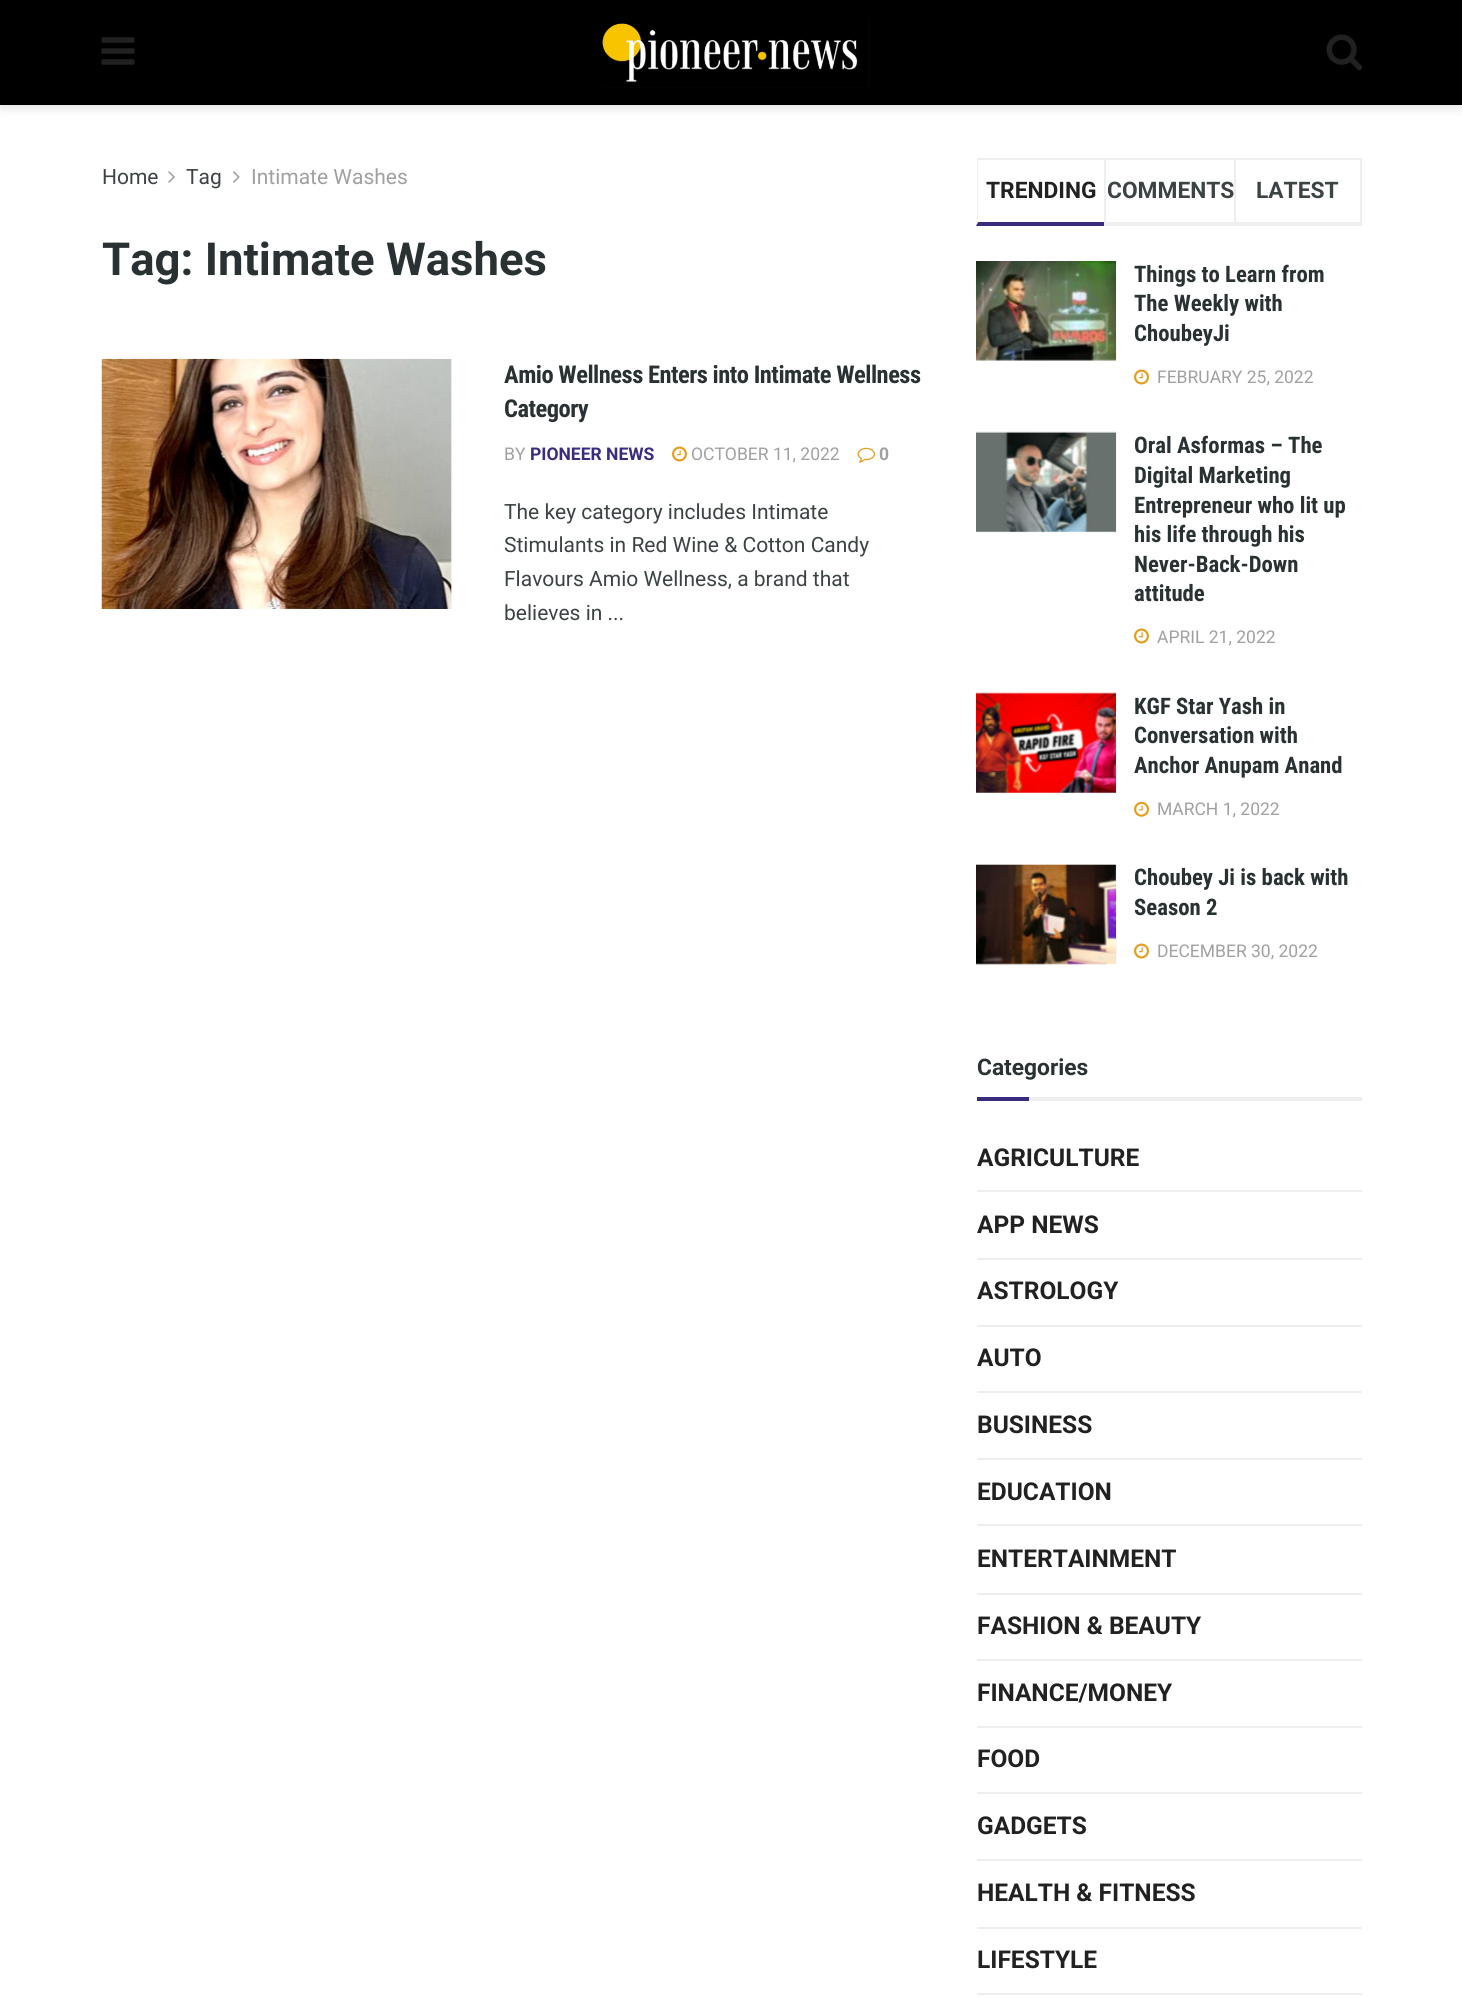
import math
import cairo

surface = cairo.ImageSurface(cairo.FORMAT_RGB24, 1462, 1998)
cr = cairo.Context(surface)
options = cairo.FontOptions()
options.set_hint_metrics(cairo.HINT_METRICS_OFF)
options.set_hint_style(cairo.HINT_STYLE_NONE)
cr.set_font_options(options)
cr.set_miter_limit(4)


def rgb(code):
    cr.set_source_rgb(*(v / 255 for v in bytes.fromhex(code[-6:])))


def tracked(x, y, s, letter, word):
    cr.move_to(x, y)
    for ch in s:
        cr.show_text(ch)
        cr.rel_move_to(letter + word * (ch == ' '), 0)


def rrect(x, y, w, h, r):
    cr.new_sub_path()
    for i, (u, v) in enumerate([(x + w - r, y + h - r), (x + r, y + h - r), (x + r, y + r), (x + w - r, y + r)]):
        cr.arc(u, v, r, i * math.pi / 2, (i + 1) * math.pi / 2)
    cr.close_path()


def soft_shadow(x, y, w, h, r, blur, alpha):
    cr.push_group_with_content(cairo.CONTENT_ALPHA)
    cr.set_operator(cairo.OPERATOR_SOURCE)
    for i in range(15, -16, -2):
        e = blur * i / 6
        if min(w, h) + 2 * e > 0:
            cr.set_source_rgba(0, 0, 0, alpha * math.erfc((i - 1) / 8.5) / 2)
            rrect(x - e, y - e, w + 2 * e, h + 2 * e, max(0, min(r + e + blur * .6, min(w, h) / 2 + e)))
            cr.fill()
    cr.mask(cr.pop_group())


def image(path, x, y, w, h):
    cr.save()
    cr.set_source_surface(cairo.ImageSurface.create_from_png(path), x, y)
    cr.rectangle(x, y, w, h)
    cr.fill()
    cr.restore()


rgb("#ffffff")
cr.paint()
rgb("#000000")
soft_shadow(0, 4, 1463, 105, 0, 5, 0.1)
rgb("#000000")
cr.rectangle(0, 0, 1462, 105)
cr.fill()
image("img/1.png", 101, 37, 34, 28)
image("img/2.png", 602, 18, 268, 70)
image("img/3.png", 1326, 34, 37, 37)
image("img/4.png", 168, 171, 7, 12)
image("img/5.png", 233, 171, 7, 12)
rgb("#f7f7f7")
cr.rectangle(451, 359, 1, 250)
cr.fill()
image("img/6.png", 101, 358, 351, 251)
image("img/7.png", 672, 446, 15, 16)
image("img/8.png", 857, 447, 18, 16)
rgb("#eeeeee")
cr.rectangle(977, 158, 385, 2)
cr.fill()
rgb("#392c7f")
cr.new_path()
cr.move_to(1104, 226)
cr.line_to(976, 226)
cr.line_to(978, 222)
cr.line_to(1104, 222)
cr.close_path()
cr.fill()
cr.save()
cr.rectangle(977, 158, 385, 68)
cr.clip()
rgb("#eeeeee")
cr.new_path()
cr.move_to(976, 226)
cr.line_to(976, 158)
cr.line_to(978, 159)
cr.line_to(978, 222)
cr.close_path()
cr.fill()
cr.restore()
for x, y, w, h, color in [
    (1104, 222, 130, 4, "#eeeeee"),
    (1104, 158, 2, 68, "#eeeeee"),
    (1360, 158, 2, 68, "#eeeeee"),
    (1234, 222, 128, 4, "#eeeeee"),
    (1234, 158, 2, 68, "#eeeeee"),
    (977, 261, 140, 100, "#f7f7f7"),
]:
    rgb(color)
    cr.rectangle(x, y, w, h)
    cr.fill()
image("img/10.png", 976, 359, 1, 1)
image("img/9.png", 976, 261, 140, 100)
image("img/7.png", 1134, 369, 15, 16)
cr.rectangle(977, 432, 140, 100)
cr.fill()
image("img/12.png", 976, 531, 1, 1)
image("img/11.png", 976, 431, 140, 102)
image("img/7.png", 1134, 628, 15, 16)
cr.rectangle(977, 693, 140, 100)
cr.fill()
image("img/14.png", 976, 693, 1, 100)
image("img/13.png", 976, 692, 140, 101)
image("img/15.png", 1134, 801, 15, 16)
cr.rectangle(977, 865, 140, 99)
cr.fill()
image("img/17.png", 976, 963, 1, 1)
image("img/16.png", 976, 864, 140, 101)
image("img/7.png", 1134, 943, 15, 16)
for x, y, w, h, color in [
    (1029, 1097, 333, 4, "#eeeeee"),
    (977, 1097, 52, 4, "#392c7f"),
    (977, 1190, 385, 2, "#eeeeee"),
    (977, 1258, 385, 2, "#eeeeee"),
    (977, 1325, 385, 2, "#eeeeee"),
    (977, 1391, 385, 2, "#eeeeee"),
    (977, 1458, 385, 2, "#eeeeee"),
    (977, 1524, 385, 2, "#eeeeee"),
    (977, 1593, 385, 2, "#eeeeee"),
    (977, 1659, 385, 2, "#eeeeee"),
    (977, 1726, 385, 2, "#eeeeee"),
    (977, 1792, 385, 2, "#eeeeee"),
    (977, 1859, 385, 2, "#eeeeee"),
    (977, 1927, 385, 2, "#eeeeee"),
    (977, 1993, 385, 2, "#eeeeee"),
]:
    rgb(color)
    cr.rectangle(x, y, w, h)
    cr.fill()
cr.select_font_face("Roboto")
cr.set_font_size(21)
rgb("#3c4344")
cr.move_to(102, 184)
cr.show_text("Home")
cr.move_to(186, 184)
cr.show_text("Tag")
rgb("#a0a0a0")
cr.move_to(251, 184)
cr.show_text("Intimate Washes")
cr.select_font_face("Roboto", cairo.FONT_SLANT_NORMAL, cairo.FONT_WEIGHT_BOLD)
cr.set_font_size(45.5)
rgb("#293132")
cr.move_to(102, 275)
cr.show_text("Tag: Intimate Washes")
cr.select_font_face("Roboto Condensed", cairo.FONT_SLANT_NORMAL, cairo.FONT_WEIGHT_BOLD)
cr.set_font_size(24.5)
tracked(504, 383, "Amio Wellness Enters into Intimate Wellness", -0.5, 0)
tracked(504, 417, "Category", -0.5, 0)
cr.select_font_face("Roboto")
cr.set_font_size(17.5)
rgb("#a0a0a0")
cr.move_to(504, 460)
cr.show_text("BY")
cr.select_font_face("Roboto", cairo.FONT_SLANT_NORMAL, cairo.FONT_WEIGHT_BOLD)
rgb("#392c7f")
cr.move_to(530, 460)
cr.show_text("PIONEER NEWS")
cr.select_font_face("Roboto")
rgb("#a0a0a0")
cr.move_to(691, 460)
cr.show_text("OCTOBER 11, 2022")
cr.select_font_face("Roboto", cairo.FONT_SLANT_NORMAL, cairo.FONT_WEIGHT_BOLD)
cr.move_to(879, 460)
cr.show_text("0")
cr.select_font_face("Roboto")
cr.set_font_size(21)
rgb("#3c4344")
for x, y, s in [
    (504, 519, "The key category includes Intimate"),
    (504, 552, "Stimulants in Red Wine & Cotton Candy"),
    (504, 586, "Flavours Amio Wellness, a brand that"),
    (504, 620, "believes in ..."),
]:
    cr.move_to(x, y)
    cr.show_text(s)
cr.select_font_face("Roboto", cairo.FONT_SLANT_NORMAL, cairo.FONT_WEIGHT_BOLD)
cr.set_font_size(22.75)
rgb("#212121")
cr.move_to(986, 198)
cr.show_text("TRENDING")
rgb("#3c4344")
cr.move_to(1107, 198)
cr.show_text("COMMENTS")
cr.move_to(1256, 198)
cr.show_text("LATEST")
cr.select_font_face("Roboto Condensed", cairo.FONT_SLANT_NORMAL, cairo.FONT_WEIGHT_BOLD)
rgb("#293132")
for x, y, s in [
    (1134, 282, "Things to Learn from"),
    (1134, 311, "The Weekly with"),
    (1134, 341, "ChoubeyJi"),
]:
    cr.move_to(x, y)
    cr.show_text(s)
cr.select_font_face("Roboto")
cr.set_font_size(17.5)
rgb("#a0a0a0")
cr.move_to(1157, 383)
cr.show_text("FEBRUARY 25, 2022")
cr.select_font_face("Roboto Condensed", cairo.FONT_SLANT_NORMAL, cairo.FONT_WEIGHT_BOLD)
cr.set_font_size(22.75)
rgb("#293132")
for x, y, s in [
    (1134, 453, "Oral Asformas – The"),
    (1134, 483, "Digital Marketing"),
    (1134, 513, "Entrepreneur who lit up"),
    (1134, 542, "his life through his"),
    (1134, 572, "Never-Back-Down"),
    (1134, 601, "attitude"),
]:
    cr.move_to(x, y)
    cr.show_text(s)
cr.select_font_face("Roboto")
cr.set_font_size(17.5)
rgb("#a0a0a0")
cr.move_to(1157, 643)
cr.show_text("APRIL 21, 2022")
cr.select_font_face("Roboto Condensed", cairo.FONT_SLANT_NORMAL, cairo.FONT_WEIGHT_BOLD)
cr.set_font_size(22.75)
rgb("#293132")
for x, y, s in [
    (1134, 714, "KGF Star Yash in"),
    (1134, 743, "Conversation with"),
    (1134, 773, "Anchor Anupam Anand"),
]:
    cr.move_to(x, y)
    cr.show_text(s)
cr.select_font_face("Roboto")
cr.set_font_size(17.5)
rgb("#a0a0a0")
cr.move_to(1157, 815)
cr.show_text("MARCH 1, 2022")
cr.select_font_face("Roboto Condensed", cairo.FONT_SLANT_NORMAL, cairo.FONT_WEIGHT_BOLD)
cr.set_font_size(22.75)
rgb("#293132")
cr.move_to(1134, 885)
cr.show_text("Choubey Ji is back with")
cr.move_to(1134, 915)
cr.show_text("Season 2")
cr.select_font_face("Roboto")
cr.set_font_size(17.5)
rgb("#a0a0a0")
cr.move_to(1157, 957)
cr.show_text("DECEMBER 30, 2022")
cr.select_font_face("Roboto", cairo.FONT_SLANT_NORMAL, cairo.FONT_WEIGHT_BOLD)
cr.set_font_size(22.75)
rgb("#293132")
cr.move_to(977, 1075)
cr.show_text("Categories")
cr.set_font_size(24.5)
rgb("#212121")
for x, y, s in [
    (977, 1166, "AGRICULTURE"),
    (977, 1233, "APP NEWS"),
    (977, 1299, "ASTROLOGY"),
    (977, 1366, "AUTO"),
    (977, 1433, "BUSINESS"),
    (977, 1500, "EDUCATION"),
    (977, 1567, "ENTERTAINMENT"),
    (977, 1634, "FASHION & BEAUTY"),
    (977, 1701, "FINANCE/MONEY"),
    (977, 1767, "FOOD"),
    (977, 1834, "GADGETS"),
    (977, 1901, "HEALTH & FITNESS"),
    (977, 1968, "LIFESTYLE"),
]:
    cr.move_to(x, y)
    cr.show_text(s)
surface.write_to_png("page.png")
